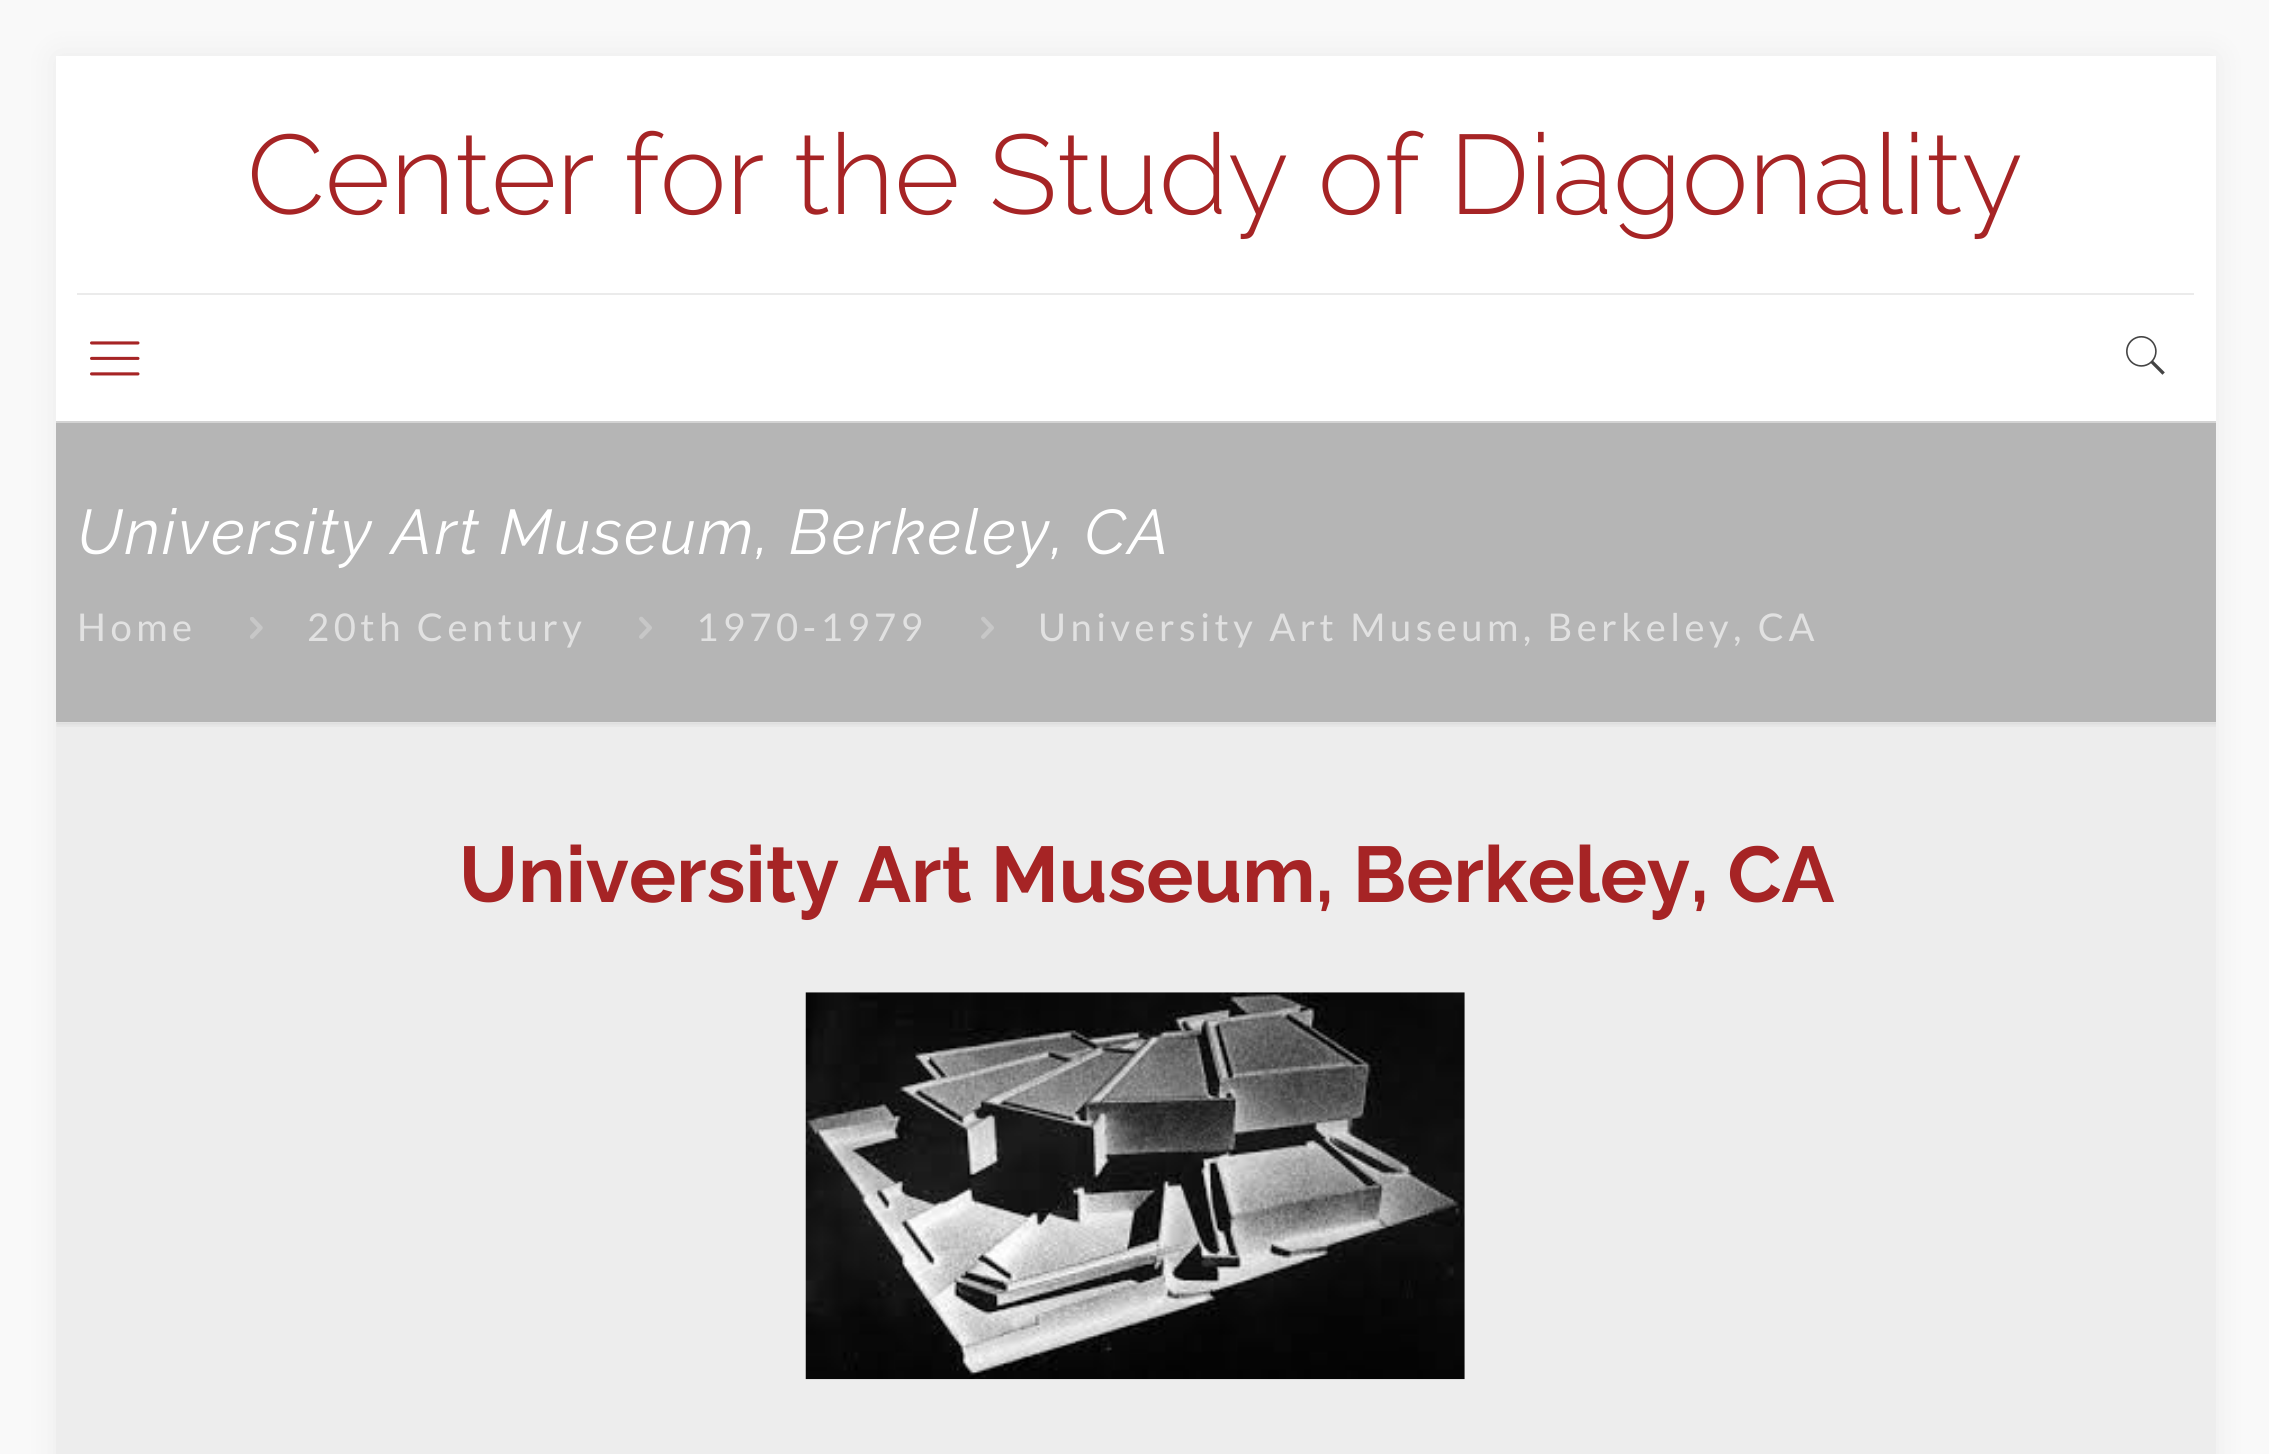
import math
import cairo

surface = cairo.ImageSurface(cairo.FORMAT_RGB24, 2269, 1454)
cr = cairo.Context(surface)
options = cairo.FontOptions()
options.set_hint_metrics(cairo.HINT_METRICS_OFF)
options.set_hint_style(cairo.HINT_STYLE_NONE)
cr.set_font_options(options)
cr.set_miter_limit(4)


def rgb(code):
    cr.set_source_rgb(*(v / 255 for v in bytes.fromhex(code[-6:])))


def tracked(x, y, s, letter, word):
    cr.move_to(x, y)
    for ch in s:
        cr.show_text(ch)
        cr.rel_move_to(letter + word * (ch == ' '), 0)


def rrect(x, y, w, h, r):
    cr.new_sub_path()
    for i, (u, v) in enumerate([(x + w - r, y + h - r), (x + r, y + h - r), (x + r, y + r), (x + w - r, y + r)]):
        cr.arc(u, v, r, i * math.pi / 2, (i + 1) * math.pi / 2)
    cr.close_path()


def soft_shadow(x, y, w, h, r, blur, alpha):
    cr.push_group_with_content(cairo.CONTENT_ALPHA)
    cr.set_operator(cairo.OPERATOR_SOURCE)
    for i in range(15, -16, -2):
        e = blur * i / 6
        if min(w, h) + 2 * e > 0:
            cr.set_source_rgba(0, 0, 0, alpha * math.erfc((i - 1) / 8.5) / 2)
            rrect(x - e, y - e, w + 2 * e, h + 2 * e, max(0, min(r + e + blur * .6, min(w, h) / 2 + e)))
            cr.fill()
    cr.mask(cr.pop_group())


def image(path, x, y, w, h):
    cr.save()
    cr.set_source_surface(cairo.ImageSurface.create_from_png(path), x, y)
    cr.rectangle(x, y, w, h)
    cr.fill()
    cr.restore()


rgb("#f9f9f9")
cr.paint()
rgb("#000000")
soft_shadow(56, 56, 2160, 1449, 0, 17, 0.06)
for x, y, w, h, color in [
    (56, 722, 2160, 732, "#ededed"),
    (56, 423, 2160, 299, "#b5b5b5"),
    (56, 56, 2160, 365, "#ffffff"),
    (56, 421, 2160, 2, "#d3d3d3"),
    (77, 293, 2117, 2, "#ebebeb"),
]:
    rgb(color)
    cr.rectangle(x, y, w, h)
    cr.fill()
image("img/1.png", 90, 341, 50, 35)
image("img/2.png", 2126, 336, 39, 39)
image("img/3.png", 250, 617, 13, 22)
image("img/4.png", 639, 616, 13, 23)
image("img/4.png", 981, 616, 13, 23)
image("img/5.png", 56, 722, 2160, 5)
image("img/6.png", 805, 992, 660, 388)
cr.select_font_face("Raleway Light")
cr.set_font_size(112.5)
rgb("#a62425")
cr.move_to(247, 214)
cr.show_text("Center for the Study of Diagonality")
cr.select_font_face("Raleway", cairo.FONT_SLANT_ITALIC)
cr.set_font_size(63)
rgb("#ffffff")
tracked(77, 554, "University Art Museum, Berkeley, CA", 2.25, 0)
cr.select_font_face("Lato")
cr.set_font_size(38.25)
rgb("#e1e1e1")
for x, y, s in [
    (77, 641, "Home"),
    (307, 641, "20th Century"),
    (696, 641, "1970-1979"),
    (1038, 641, "University Art Museum, Berkeley, CA"),
]:
    tracked(x, y, s, 4.5, 0)
cr.select_font_face("Raleway", cairo.FONT_SLANT_NORMAL, cairo.FONT_WEIGHT_BOLD)
cr.set_font_size(78.75)
rgb("#a62425")
cr.move_to(459, 902)
cr.show_text("University Art Museum, Berkeley, CA")
surface.write_to_png("page.png")
